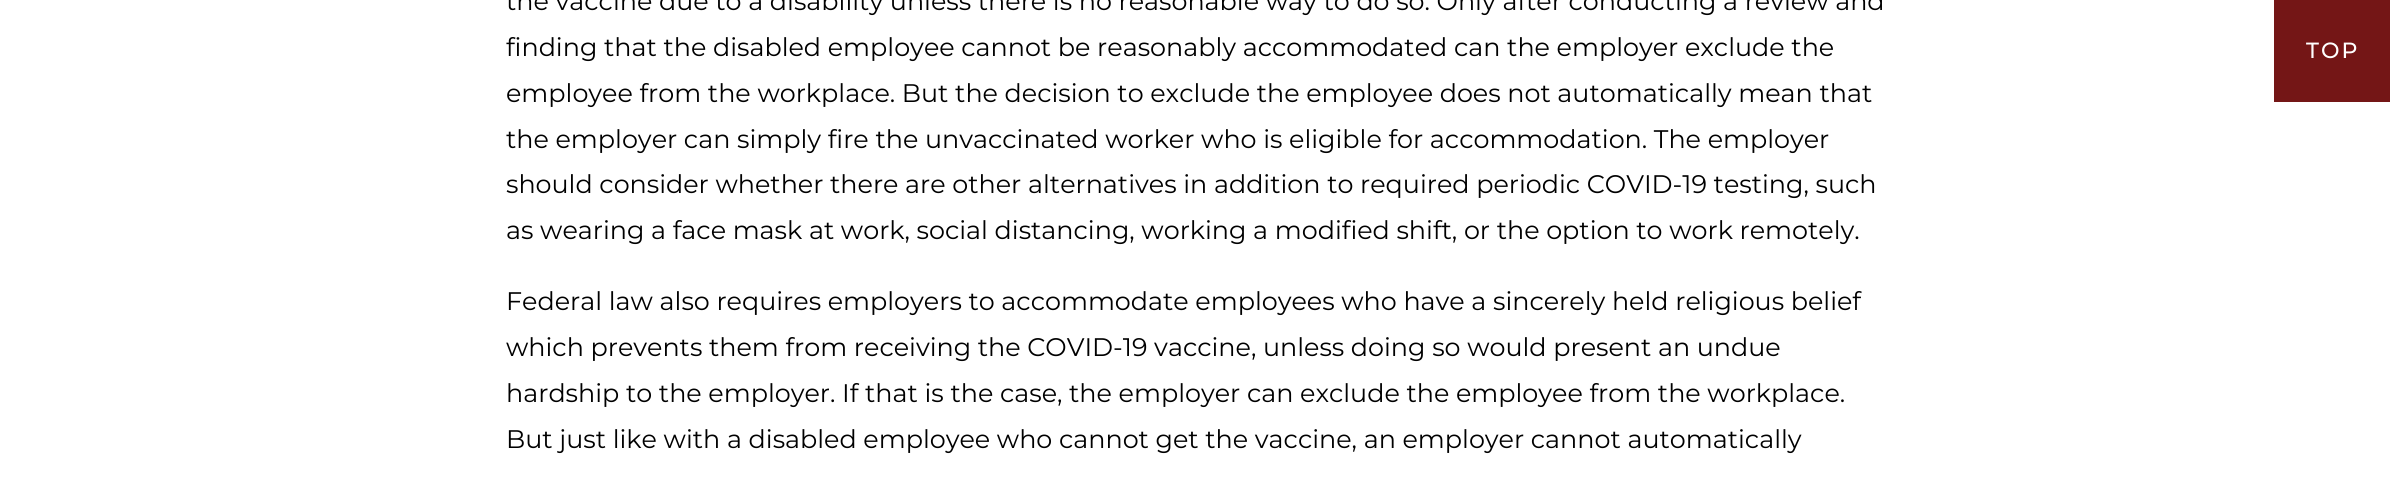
import math
import cairo

surface = cairo.ImageSurface(cairo.FORMAT_RGB24, 2390, 482)
cr = cairo.Context(surface)
options = cairo.FontOptions()
options.set_hint_metrics(cairo.HINT_METRICS_OFF)
options.set_hint_style(cairo.HINT_STYLE_NONE)
cr.set_font_options(options)
cr.set_miter_limit(4)


def rgb(code):
    cr.set_source_rgb(*(v / 255 for v in bytes.fromhex(code[-6:])))


def tracked(x, y, s, letter, word):
    cr.move_to(x, y)
    for ch in s:
        cr.show_text(ch)
        cr.rel_move_to(letter + word * (ch == ' '), 0)


rgb("#ffffff")
cr.paint()
rgb("#741616")
cr.rectangle(2274, 0, 116, 102)
cr.fill()
cr.select_font_face("Montserrat")
cr.set_font_size(25.42)
rgb("#000000")
for x, y, s in [
    (506, 10, "the vaccine due to a disability unless there is no reasonable way to do so. Only after conducting a review and"),
    (506, 56, "finding that the disabled employee cannot be reasonably accommodated can the employer exclude the"),
    (506, 102, "employee from the workplace. But the decision to exclude the employee does not automatically mean that"),
    (506, 148, "the employer can simply fire the unvaccinated worker who is eligible for accommodation. The employer"),
    (506, 193, "should consider whether there are other alternatives in addition to required periodic COVID-19 testing, such"),
    (506, 239, "as wearing a face mask at work, social distancing, working a modified shift, or the option to work remotely."),
    (506, 310, "Federal law also requires employers to accommodate employees who have a sincerely held religious belief"),
    (506, 356, "which prevents them from receiving the COVID-19 vaccine, unless doing so would present an undue"),
    (506, 402, "hardship to the employer. If that is the case, the employer can exclude the employee from the workplace."),
    (506, 448, "But just like with a disabled employee who cannot get the vaccine, an employer cannot automatically"),
]:
    cr.move_to(x, y)
    cr.show_text(s)
cr.select_font_face("Montserrat Medium")
cr.set_font_size(22)
rgb("#ffffff")
tracked(2306, 58, "TOP", 2, 0)
surface.write_to_png("page.png")
